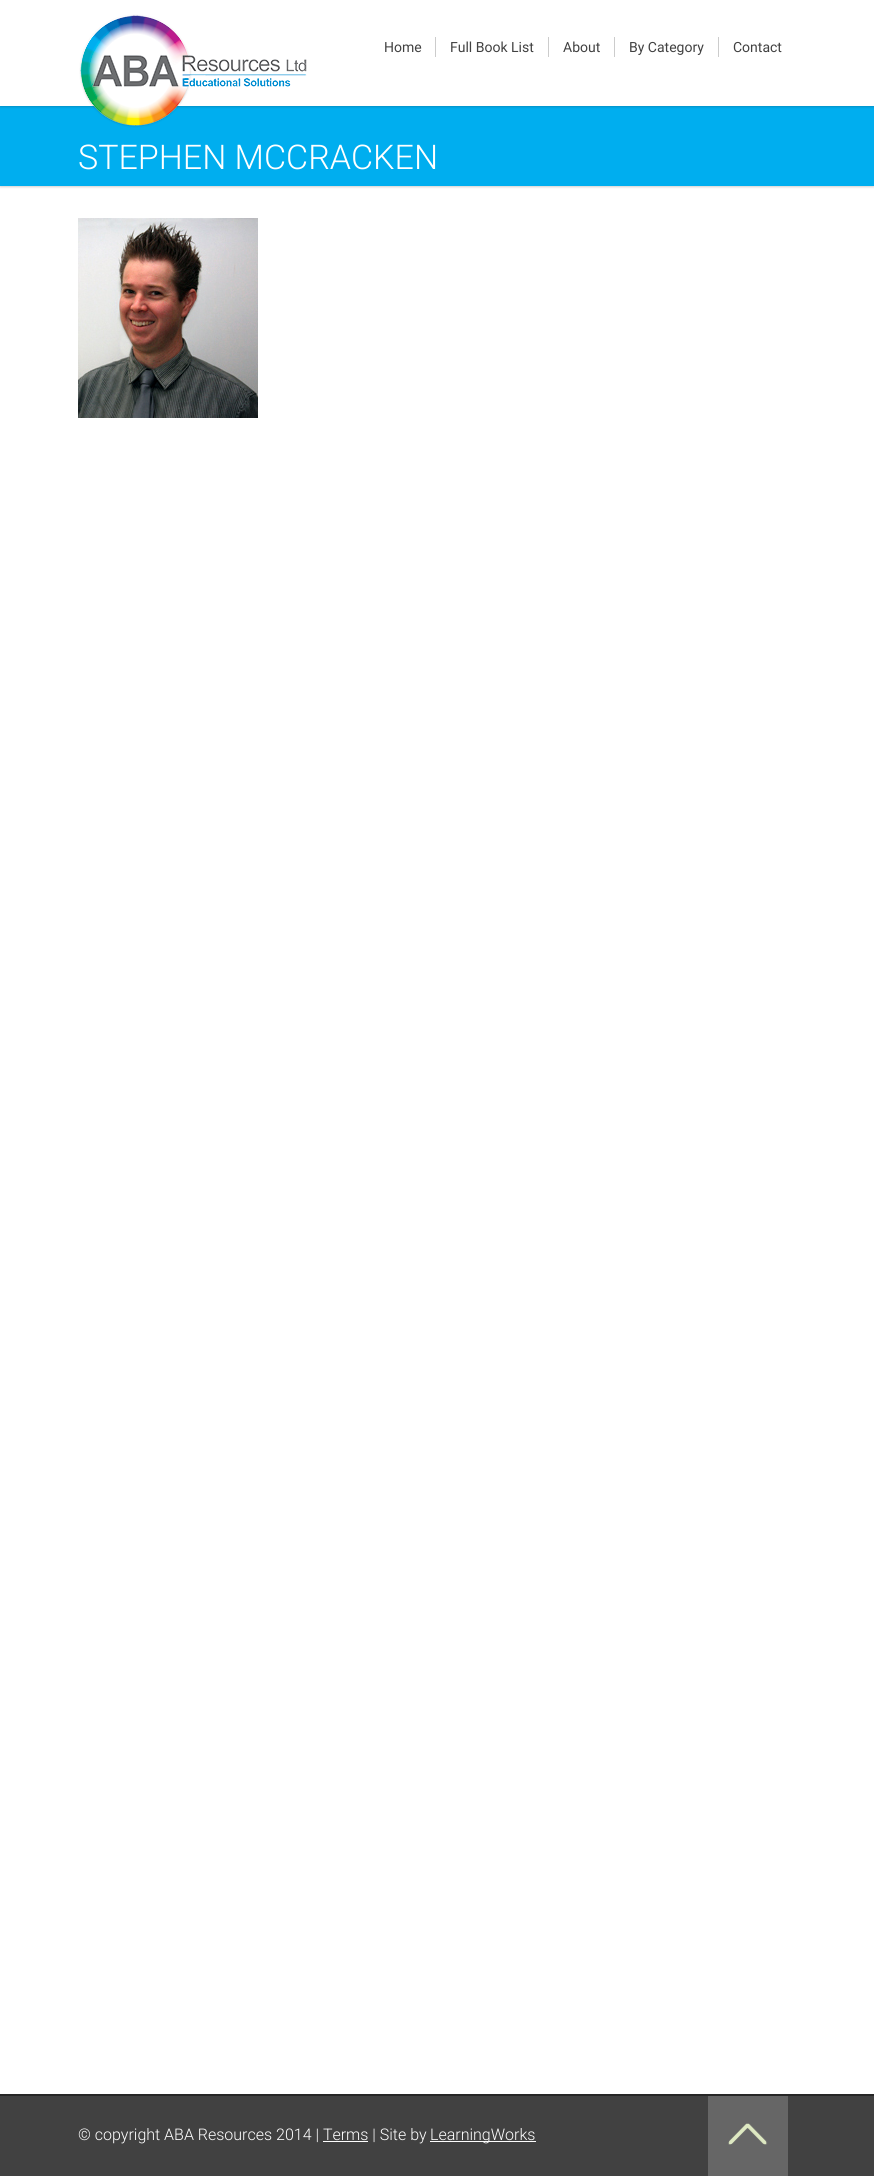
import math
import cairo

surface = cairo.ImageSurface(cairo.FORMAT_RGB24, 874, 2176)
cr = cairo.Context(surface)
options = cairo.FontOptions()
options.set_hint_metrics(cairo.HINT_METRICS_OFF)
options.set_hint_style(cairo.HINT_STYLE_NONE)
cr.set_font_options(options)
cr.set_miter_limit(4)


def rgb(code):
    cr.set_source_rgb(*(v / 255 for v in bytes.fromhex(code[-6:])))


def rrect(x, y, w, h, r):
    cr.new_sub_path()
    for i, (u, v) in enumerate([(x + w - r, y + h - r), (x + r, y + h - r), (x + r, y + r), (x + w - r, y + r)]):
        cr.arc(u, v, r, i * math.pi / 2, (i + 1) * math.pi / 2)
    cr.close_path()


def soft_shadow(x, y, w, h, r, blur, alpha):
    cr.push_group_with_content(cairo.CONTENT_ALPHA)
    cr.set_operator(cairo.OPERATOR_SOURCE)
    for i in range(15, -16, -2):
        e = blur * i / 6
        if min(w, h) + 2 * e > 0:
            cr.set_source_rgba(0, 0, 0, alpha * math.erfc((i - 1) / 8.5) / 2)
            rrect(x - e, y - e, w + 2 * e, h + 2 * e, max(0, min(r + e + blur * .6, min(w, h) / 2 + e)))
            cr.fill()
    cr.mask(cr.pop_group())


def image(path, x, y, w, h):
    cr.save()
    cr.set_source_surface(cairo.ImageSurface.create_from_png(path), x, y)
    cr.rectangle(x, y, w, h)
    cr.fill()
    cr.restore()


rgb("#ffffff")
cr.paint()
rgb("#191919")
soft_shadow(0, 107, 874, 80, 0, 1, 0.2)
rgb("#00aeef")
cr.rectangle(0, 106, 874, 80)
cr.fill()
rgb("#191919")
soft_shadow(0, 1, 874, 106, 0, 1, 0.2)
rgb("#ffffff")
cr.rectangle(0, 0, 874, 106)
cr.fill()
image("img/1.png", 80, 15, 227, 111)
cr.save()
cr.set_fill_rule(cairo.FILL_RULE_EVEN_ODD)
cr.new_path()
cr.move_to(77, 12)
cr.line_to(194, 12)
cr.line_to(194, 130)
cr.line_to(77, 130)
cr.close_path()
cr.move_to(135.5, 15)
cr.curve_to(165.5, 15, 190, 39.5, 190, 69.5)
cr.line_to(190, 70.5)
cr.curve_to(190, 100.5, 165.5, 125, 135.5, 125)
cr.curve_to(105.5, 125, 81, 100.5, 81, 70.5)
cr.line_to(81, 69.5)
cr.curve_to(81, 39.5, 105.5, 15, 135.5, 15)
cr.close_path()
cr.clip()
rgb("#191919")
soft_shadow(81, 16, 109, 110, 54.5, 1, 0.2)
cr.restore()
for x, y, w, h, color in [
    (435, 37, 1, 20, "#cccccc"),
    (548, 37, 1, 20, "#cccccc"),
    (614, 37, 1, 20, "#cccccc"),
    (718, 37, 1, 20, "#cccccc"),
]:
    rgb(color)
    cr.rectangle(x, y, w, h)
    cr.fill()
image("img/2.png", 78, 218, 180, 200)
for x, y, w, h, color in [
    (0, 2096, 874, 80, "#414141"),
    (0, 2094, 874, 2, "#262626"),
    (430, 2141, 106, 1, "#ffffff"),
    (323, 2141, 45, 1, "#ffffff"),
    (708, 2096, 80, 80, "#666666"),
]:
    rgb(color)
    cr.rectangle(x, y, w, h)
    cr.fill()
image("img/3.png", 728, 2123, 40, 22)
cr.select_font_face("Roboto")
cr.set_font_size(14)
rgb("#414141")
for x, y, s in [
    (384, 52, "Home"),
    (450, 52, "Full Book List"),
    (563, 52, "About"),
    (629, 52, "By Category"),
    (733, 52, "Contact"),
]:
    cr.move_to(x, y)
    cr.show_text(s)
cr.select_font_face("Roboto Light")
cr.set_font_size(34)
rgb("#ffffff")
cr.move_to(78, 169)
cr.show_text("STEPHEN MCCRACKEN")
cr.set_font_size(16)
cr.move_to(78, 2140)
cr.show_text("© copyright ABA Resources 2014 | Terms | Site by")
cr.move_to(430, 2140)
cr.show_text("LearningWorks")
surface.write_to_png("page.png")
